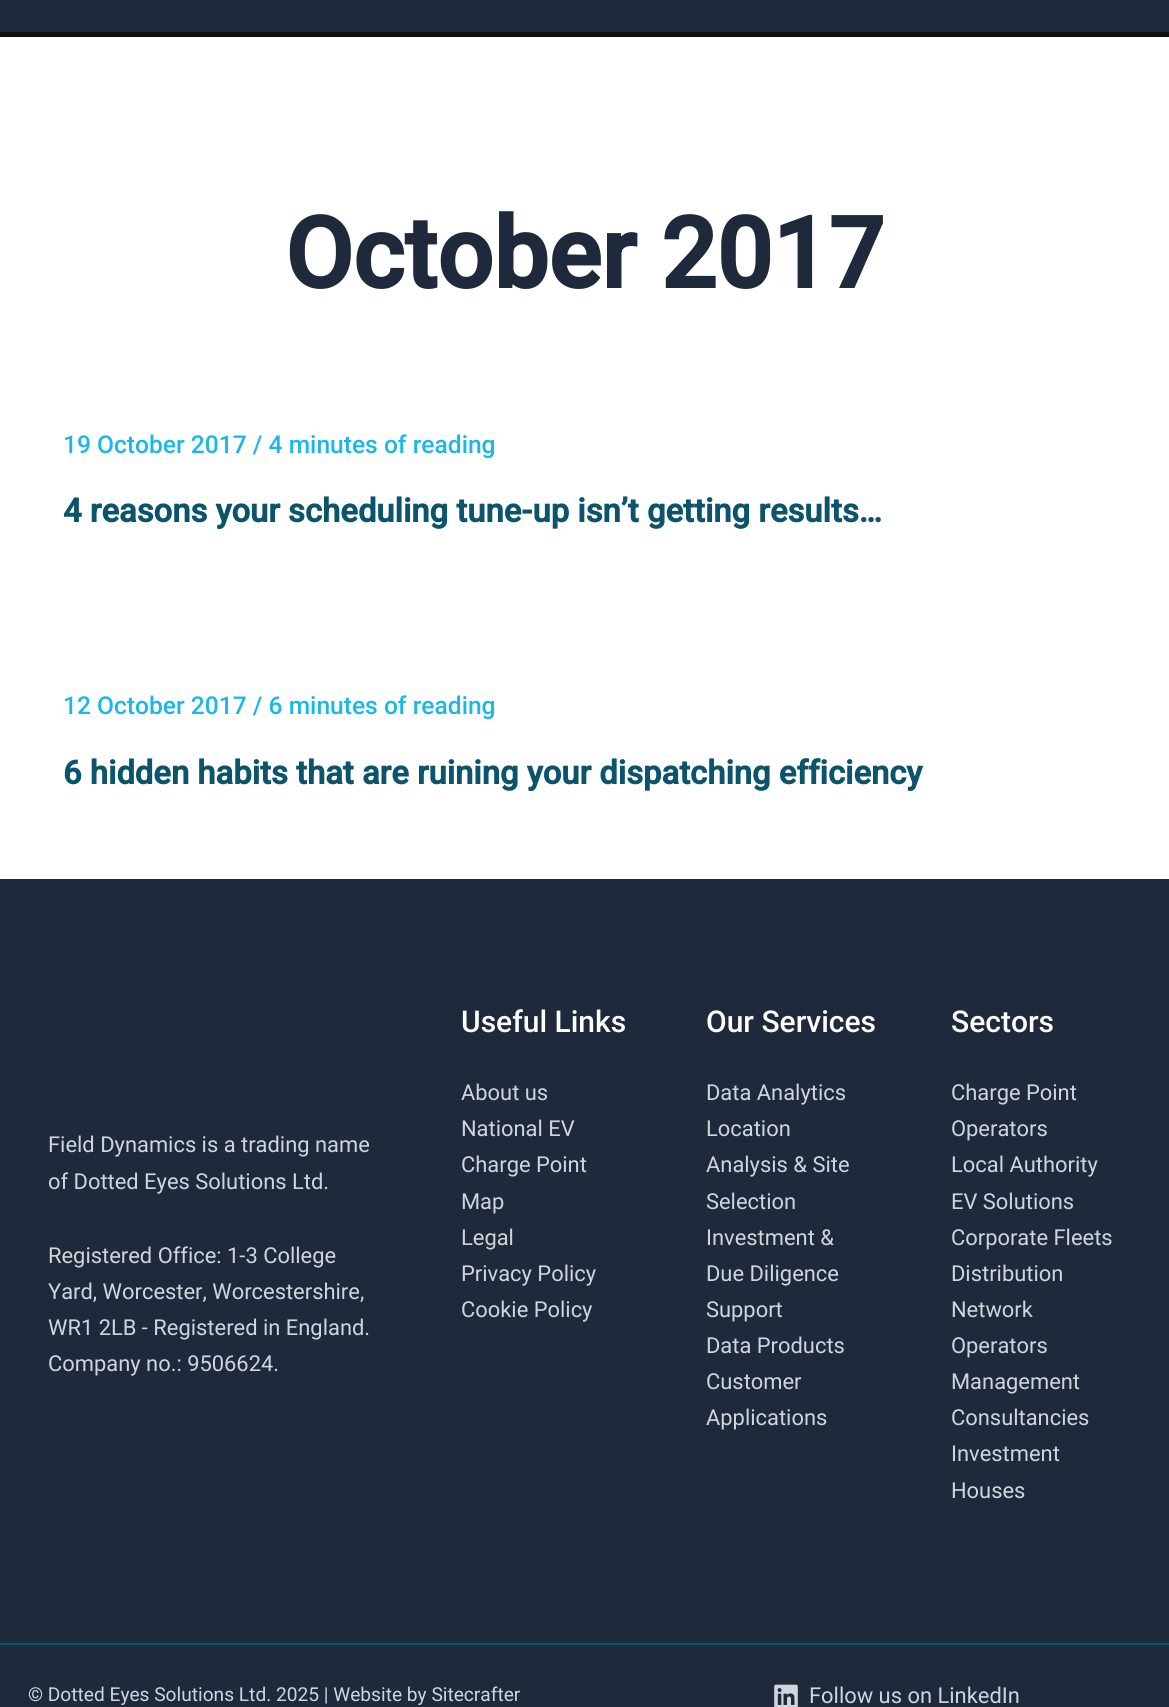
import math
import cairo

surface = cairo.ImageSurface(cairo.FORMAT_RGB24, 1169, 1707)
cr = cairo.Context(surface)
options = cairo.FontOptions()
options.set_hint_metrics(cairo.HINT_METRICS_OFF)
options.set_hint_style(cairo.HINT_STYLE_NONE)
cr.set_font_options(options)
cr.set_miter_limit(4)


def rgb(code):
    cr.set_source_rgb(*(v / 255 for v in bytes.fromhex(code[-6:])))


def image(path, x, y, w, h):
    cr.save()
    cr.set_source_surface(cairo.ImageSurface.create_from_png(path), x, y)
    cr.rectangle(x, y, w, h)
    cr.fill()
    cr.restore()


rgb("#ffffff")
cr.paint()
for x, y, w, h, color in [
    (0, 0, 1169, 32, "#1e293b"),
    (0, 32, 1169, 5, "#111111"),
    (0, 879, 1169, 764, "#1e293b"),
    (0, 1645, 1169, 62, "#1e293b"),
    (0, 1643, 1169, 2, "#0b546b"),
]:
    rgb(color)
    cr.rectangle(x, y, w, h)
    cr.fill()
image("img/1.png", 774, 1684, 24, 23)
cr.select_font_face("Roboto", cairo.FONT_SLANT_NORMAL, cairo.FONT_WEIGHT_BOLD)
cr.set_font_size(98.5)
rgb("#1e293b")
cr.move_to(285, 288)
cr.show_text("October 2017")
cr.select_font_face("Roboto Medium")
cr.set_font_size(24.6)
rgb("#1ab7ea")
cr.move_to(63, 453)
cr.show_text("19 October 2017 / 4 minutes of reading")
cr.select_font_face("Roboto", cairo.FONT_SLANT_NORMAL, cairo.FONT_WEIGHT_BOLD)
cr.set_font_size(32.8)
rgb("#0b546b")
cr.move_to(63, 522)
cr.show_text("4 reasons your scheduling tune-up isn’t getting results…")
cr.select_font_face("Roboto Medium")
cr.set_font_size(24.6)
rgb("#1ab7ea")
cr.move_to(63, 714)
cr.show_text("12 October 2017 / 6 minutes of reading")
cr.select_font_face("Roboto", cairo.FONT_SLANT_NORMAL, cairo.FONT_WEIGHT_BOLD)
cr.set_font_size(32.8)
rgb("#0b546b")
cr.move_to(63, 784)
cr.show_text("6 hidden habits that are ruining your dispatching efficiency")
cr.select_font_face("Roboto")
cr.set_font_size(21.9)
rgb("#d1d5db")
for x, y, s in [
    (48, 1152, "Field Dynamics is a trading name"),
    (48, 1189, "of Dotted Eyes Solutions Ltd."),
    (48, 1263, "Registered Office: 1-3 College"),
    (48, 1299, "Yard, Worcester, Worcestershire,"),
    (48, 1335, "WR1 2LB - Registered in England."),
    (48, 1371, "Company no.: 9506624."),
]:
    cr.move_to(x, y)
    cr.show_text(s)
cr.select_font_face("Roboto Medium")
cr.set_font_size(30)
rgb("#ffffff")
cr.move_to(461, 1032)
cr.show_text("Useful Links")
cr.select_font_face("Roboto")
cr.set_font_size(21.9)
rgb("#d1d5db")
for x, y, s in [
    (461, 1100, "About us"),
    (461, 1136, "National EV"),
    (461, 1172, "Charge Point"),
    (461, 1209, "Map"),
    (461, 1245, "Legal"),
    (461, 1281, "Privacy Policy"),
    (461, 1317, "Cookie Policy"),
]:
    cr.move_to(x, y)
    cr.show_text(s)
cr.select_font_face("Roboto Medium")
cr.set_font_size(30)
rgb("#ffffff")
cr.move_to(706, 1032)
cr.show_text("Our Services")
cr.select_font_face("Roboto")
cr.set_font_size(21.9)
rgb("#d1d5db")
for x, y, s in [
    (706, 1100, "Data Analytics"),
    (706, 1136, "Location"),
    (706, 1172, "Analysis & Site"),
    (706, 1209, "Selection"),
    (706, 1245, "Investment &"),
    (706, 1281, "Due Diligence"),
    (706, 1317, "Support"),
    (706, 1353, "Data Products"),
    (706, 1389, "Customer"),
    (706, 1425, "Applications"),
]:
    cr.move_to(x, y)
    cr.show_text(s)
cr.select_font_face("Roboto Medium")
cr.set_font_size(30)
rgb("#ffffff")
cr.move_to(951, 1032)
cr.show_text("Sectors")
cr.select_font_face("Roboto")
cr.set_font_size(21.9)
rgb("#d1d5db")
for x, y, s in [
    (951, 1100, "Charge Point"),
    (951, 1136, "Operators"),
    (951, 1172, "Local Authority"),
    (951, 1209, "EV Solutions"),
    (951, 1245, "Corporate Fleets"),
    (951, 1281, "Distribution"),
    (951, 1317, "Network"),
    (951, 1353, "Operators"),
    (951, 1389, "Management"),
    (951, 1425, "Consultancies"),
    (951, 1461, "Investment"),
    (951, 1498, "Houses"),
]:
    cr.move_to(x, y)
    cr.show_text(s)
cr.set_font_size(19.15)
cr.move_to(28, 1701)
cr.show_text("© Dotted Eyes Solutions Ltd. 2025 | Website by Sitecrafter")
cr.set_font_size(21.9)
cr.move_to(809, 1703)
cr.show_text("Follow us on LinkedIn")
surface.write_to_png("page.png")
